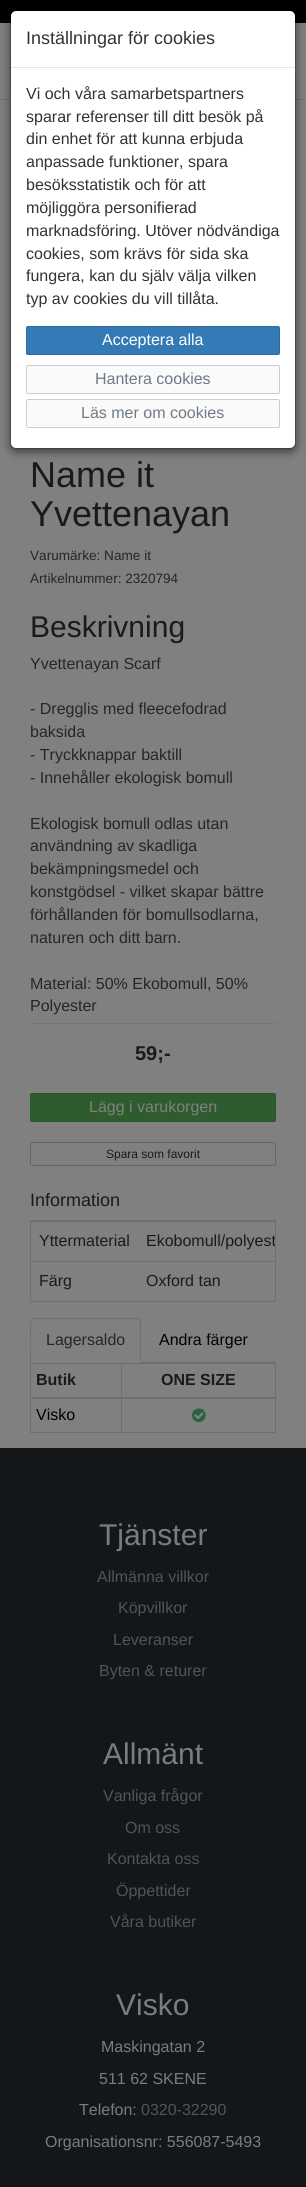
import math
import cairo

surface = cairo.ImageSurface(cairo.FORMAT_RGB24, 306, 2187)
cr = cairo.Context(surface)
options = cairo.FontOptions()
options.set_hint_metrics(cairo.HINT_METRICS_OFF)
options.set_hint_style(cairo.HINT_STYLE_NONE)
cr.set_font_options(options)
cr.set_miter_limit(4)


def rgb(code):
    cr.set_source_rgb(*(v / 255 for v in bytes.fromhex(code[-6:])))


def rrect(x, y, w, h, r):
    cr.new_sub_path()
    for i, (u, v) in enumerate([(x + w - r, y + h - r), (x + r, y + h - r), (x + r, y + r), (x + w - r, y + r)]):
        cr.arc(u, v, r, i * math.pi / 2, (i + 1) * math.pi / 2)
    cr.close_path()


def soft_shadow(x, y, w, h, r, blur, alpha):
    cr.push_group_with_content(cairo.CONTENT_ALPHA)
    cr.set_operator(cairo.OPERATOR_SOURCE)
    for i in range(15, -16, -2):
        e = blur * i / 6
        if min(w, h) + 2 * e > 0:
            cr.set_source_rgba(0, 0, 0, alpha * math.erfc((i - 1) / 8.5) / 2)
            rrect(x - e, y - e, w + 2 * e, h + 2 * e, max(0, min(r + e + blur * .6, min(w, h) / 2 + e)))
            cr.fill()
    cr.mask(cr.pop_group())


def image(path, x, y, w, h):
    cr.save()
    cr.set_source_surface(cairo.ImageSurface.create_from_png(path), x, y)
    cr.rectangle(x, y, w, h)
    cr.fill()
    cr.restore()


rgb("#808080")
cr.paint()
rgb("#747474")
cr.rectangle(0, 99, 306, 1)
cr.fill()
rgb("#000000")
cr.rectangle(0, 0, 306, 23)
cr.fill()
rrect(10.5, 57.5, 43, 33, 3.5)
rgb("#747474")
cr.set_line_width(1)
cr.stroke()
rgb("#000000")
soft_shadow(10, 13, 286, 439, 6, 4.5, 0.5)
rgb("#ffffff")
rrect(11, 11, 284, 437, 5)
cr.fill()
rrect(10.5, 10.5, 285, 438, 5.5)
cr.set_source_rgba(0, 0, 0, 0.2)
cr.stroke()
rgb("#e5e5e5")
cr.rectangle(11, 67, 284, 1)
cr.fill()
rgb("#337ab7")
rrect(26.5, 326.5, 253, 28, 1.5)
cr.fill_preserve()
rgb("#2e6da4")
cr.stroke()
rgb("#fafafa")
rrect(26.5, 365.5, 253, 28, 1.5)
cr.fill_preserve()
rgb("#cccccc")
cr.stroke()
rgb("#fafafa")
rrect(26.5, 399.5, 253, 28, 1.5)
cr.fill_preserve()
rgb("#cccccc")
cr.stroke()
rgb("#777777")
cr.rectangle(30, 1023, 246, 1)
cr.fill()
rgb("#2e5c2e")
rrect(30.5, 1093.5, 245, 28, 1.5)
cr.fill_preserve()
rgb("#265726")
cr.stroke()
rrect(30.5, 1142.5, 245, 23, 1.5)
rgb("#666666")
cr.stroke()
cr.rectangle(30.5, 1220.5, 245, 81)
rgb("#6f6f6f")
cr.stroke()
for x, y, w, h, color in [
    (31, 1221, 244, 1, "#6f6f6f"),
    (31, 1261, 244, 1, "#6f6f6f"),
    (141, 1362, 135, 1, "#6f6f6f"),
]:
    rgb(color)
    cr.rectangle(x, y, w, h)
    cr.fill()
cr.new_path()
cr.move_to(34, 1318)
cr.line_to(31, 1319)
cr.line_to(32, 1320)
cr.line_to(34, 1319)
cr.line_to(137, 1319)
cr.line_to(139, 1320)
cr.line_to(140, 1319)
cr.line_to(137, 1318)
cr.close_path()
cr.fill()
cr.new_path()
cr.move_to(141, 1363)
cr.line_to(141, 1322)
cr.curve_to(141, 1321, 140, 1320, 140, 1319)
cr.line_to(139, 1320)
cr.curve_to(141, 1322, 140, 1357, 140, 1362)
cr.close_path()
cr.fill()
cr.new_path()
cr.move_to(30, 1363)
cr.line_to(31, 1362)
cr.curve_to(31, 1357, 30, 1322, 32, 1320)
cr.line_to(31, 1319)
cr.line_to(30, 1322)
cr.close_path()
cr.fill()
cr.rectangle(30.5, 1363.5, 245, 69)
cr.stroke()
cr.rectangle(121, 1364, 1, 68)
cr.fill()
cr.rectangle(31, 1397, 244, 2)
cr.fill()
image("img/1.png", 192, 1408, 14, 15)
rgb("#141719")
cr.rectangle(0, 1448, 306, 739)
cr.fill()
cr.select_font_face("Liberation Sans")
cr.set_font_size(18)
rgb("#333333")
cr.move_to(26, 44)
cr.show_text("Inställningar för cookies")
cr.set_font_size(16)
for x, y, s in [
    (26, 99, "Vi och våra samarbetspartners"),
    (26, 122, "sparar referenser till ditt besök på"),
    (26, 144, "din enhet för att kunna erbjuda"),
    (26, 167, "anpassade funktioner, spara"),
    (26, 190, "besöksstatistik och för att"),
    (26, 213, "möjliggöra personifierad"),
    (26, 236, "marknadsföring. Utöver nödvändiga"),
    (26, 259, "cookies, som krävs för sida ska"),
    (26, 281, "fungera, kan du själv välja vilken"),
    (26, 304, "typ av cookies du vill tillåta."),
]:
    cr.move_to(x, y)
    cr.show_text(s)
rgb("#ffffff")
cr.move_to(102, 345)
cr.show_text("Acceptera alla")
rgb("#6f7a85")
cr.move_to(95, 384)
cr.show_text("Hantera cookies")
cr.move_to(81, 418)
cr.show_text("Läs mer om cookies")
cr.set_font_size(36)
rgb("#1a1a1a")
cr.move_to(30, 487)
cr.show_text("Name it")
cr.move_to(30, 526)
cr.show_text("Yvettenayan")
cr.set_font_size(13.6)
rgb("#262626")
cr.move_to(30, 560)
cr.show_text("Varumärke: Name it")
cr.move_to(30, 583)
cr.show_text("Artikelnummer: 2320794")
cr.set_font_size(30)
rgb("#1a1a1a")
cr.move_to(30, 637)
cr.show_text("Beskrivning")
cr.set_font_size(16)
rgb("#262626")
for x, y, s in [
    (30, 669, "Yvettenayan Scarf"),
    (30, 714, "- Dregglis med fleecefodrad"),
    (30, 737, "baksida"),
    (30, 760, "- Tryckknappar baktill"),
    (30, 783, "- Innehåller ekologisk bomull"),
    (30, 829, "Ekologisk bomull odlas utan"),
    (30, 851, "användning av skadliga"),
    (30, 874, "bekämpningsmedel och"),
    (30, 897, "konstgödsel - vilket skapar bättre"),
    (30, 920, "förhållanden för bomullsodlarna,"),
    (30, 943, "naturen och ditt barn."),
    (30, 989, "Material: 50% Ekobomull, 50%"),
    (30, 1011, "Polyester"),
]:
    cr.move_to(x, y)
    cr.show_text(s)
cr.select_font_face("Liberation Sans", cairo.FONT_SLANT_NORMAL, cairo.FONT_WEIGHT_BOLD)
cr.set_font_size(20)
rgb("#1a1a1a")
cr.move_to(135, 1060)
cr.show_text("59;-")
cr.select_font_face("Liberation Sans")
cr.set_font_size(16)
rgb("#808080")
cr.move_to(89, 1112)
cr.show_text("Lägg i varukorgen")
cr.set_font_size(12)
rgb("#1a1a1a")
cr.move_to(106, 1158)
cr.show_text("Spara som favorit")
cr.set_font_size(18)
cr.move_to(30, 1206)
cr.show_text("Information")
cr.set_font_size(16)
cr.move_to(39, 1246)
cr.show_text("Yttermaterial")
cr.save()
cr.rectangle(31, 1221, 244, 80)
cr.clip()
cr.move_to(146, 1246)
cr.show_text("Ekobomull/polyest")
cr.restore()
cr.move_to(39, 1286)
cr.show_text("Färg")
cr.move_to(146, 1286)
cr.show_text("Oxford tan")
rgb("#262626")
cr.move_to(46, 1345)
cr.show_text("Lagersaldo")
rgb("#000000")
cr.move_to(159, 1345)
cr.show_text("Andra färger")
cr.select_font_face("Liberation Sans", cairo.FONT_SLANT_NORMAL, cairo.FONT_WEIGHT_BOLD)
rgb("#1a1a1a")
cr.move_to(36, 1385)
cr.show_text("Butik")
cr.move_to(161, 1385)
cr.show_text("ONE SIZE")
cr.select_font_face("Liberation Sans")
rgb("#000000")
cr.move_to(36, 1420)
cr.show_text("Visko")
cr.set_font_size(30)
rgb("#787d80")
cr.move_to(99, 1545)
cr.show_text("Tjänster")
cr.set_font_size(16)
rgb("#505457")
for x, y, s in [
    (97, 1582, "Allmänna villkor"),
    (118, 1613, "Köpvillkor"),
    (113, 1645, "Leveranser"),
    (99, 1676, "Byten & returer"),
]:
    cr.move_to(x, y)
    cr.show_text(s)
cr.set_font_size(30)
rgb("#787d80")
cr.move_to(103, 1764)
cr.show_text("Allmänt")
cr.set_font_size(16)
rgb("#505457")
for x, y, s in [
    (103, 1801, "Vanliga frågor"),
    (125, 1833, "Om oss"),
    (107, 1864, "Kontakta oss"),
    (116, 1896, "Öppettider"),
    (110, 1927, "Våra butiker"),
]:
    cr.move_to(x, y)
    cr.show_text(s)
cr.set_font_size(30)
rgb("#787d80")
cr.move_to(116, 2015)
cr.show_text("Visko")
cr.set_font_size(16)
for x, y, s in [
    (101, 2052, "Maskingatan 2"),
    (99, 2084, "511 62 SKENE"),
    (79, 2115, "Telefon:"),
]:
    cr.move_to(x, y)
    cr.show_text(s)
rgb("#505457")
cr.move_to(141, 2115)
cr.show_text("0320-32290")
rgb("#787d80")
cr.move_to(45, 2147)
cr.show_text("Organisationsnr: 556087-5493")
surface.write_to_png("page.png")
